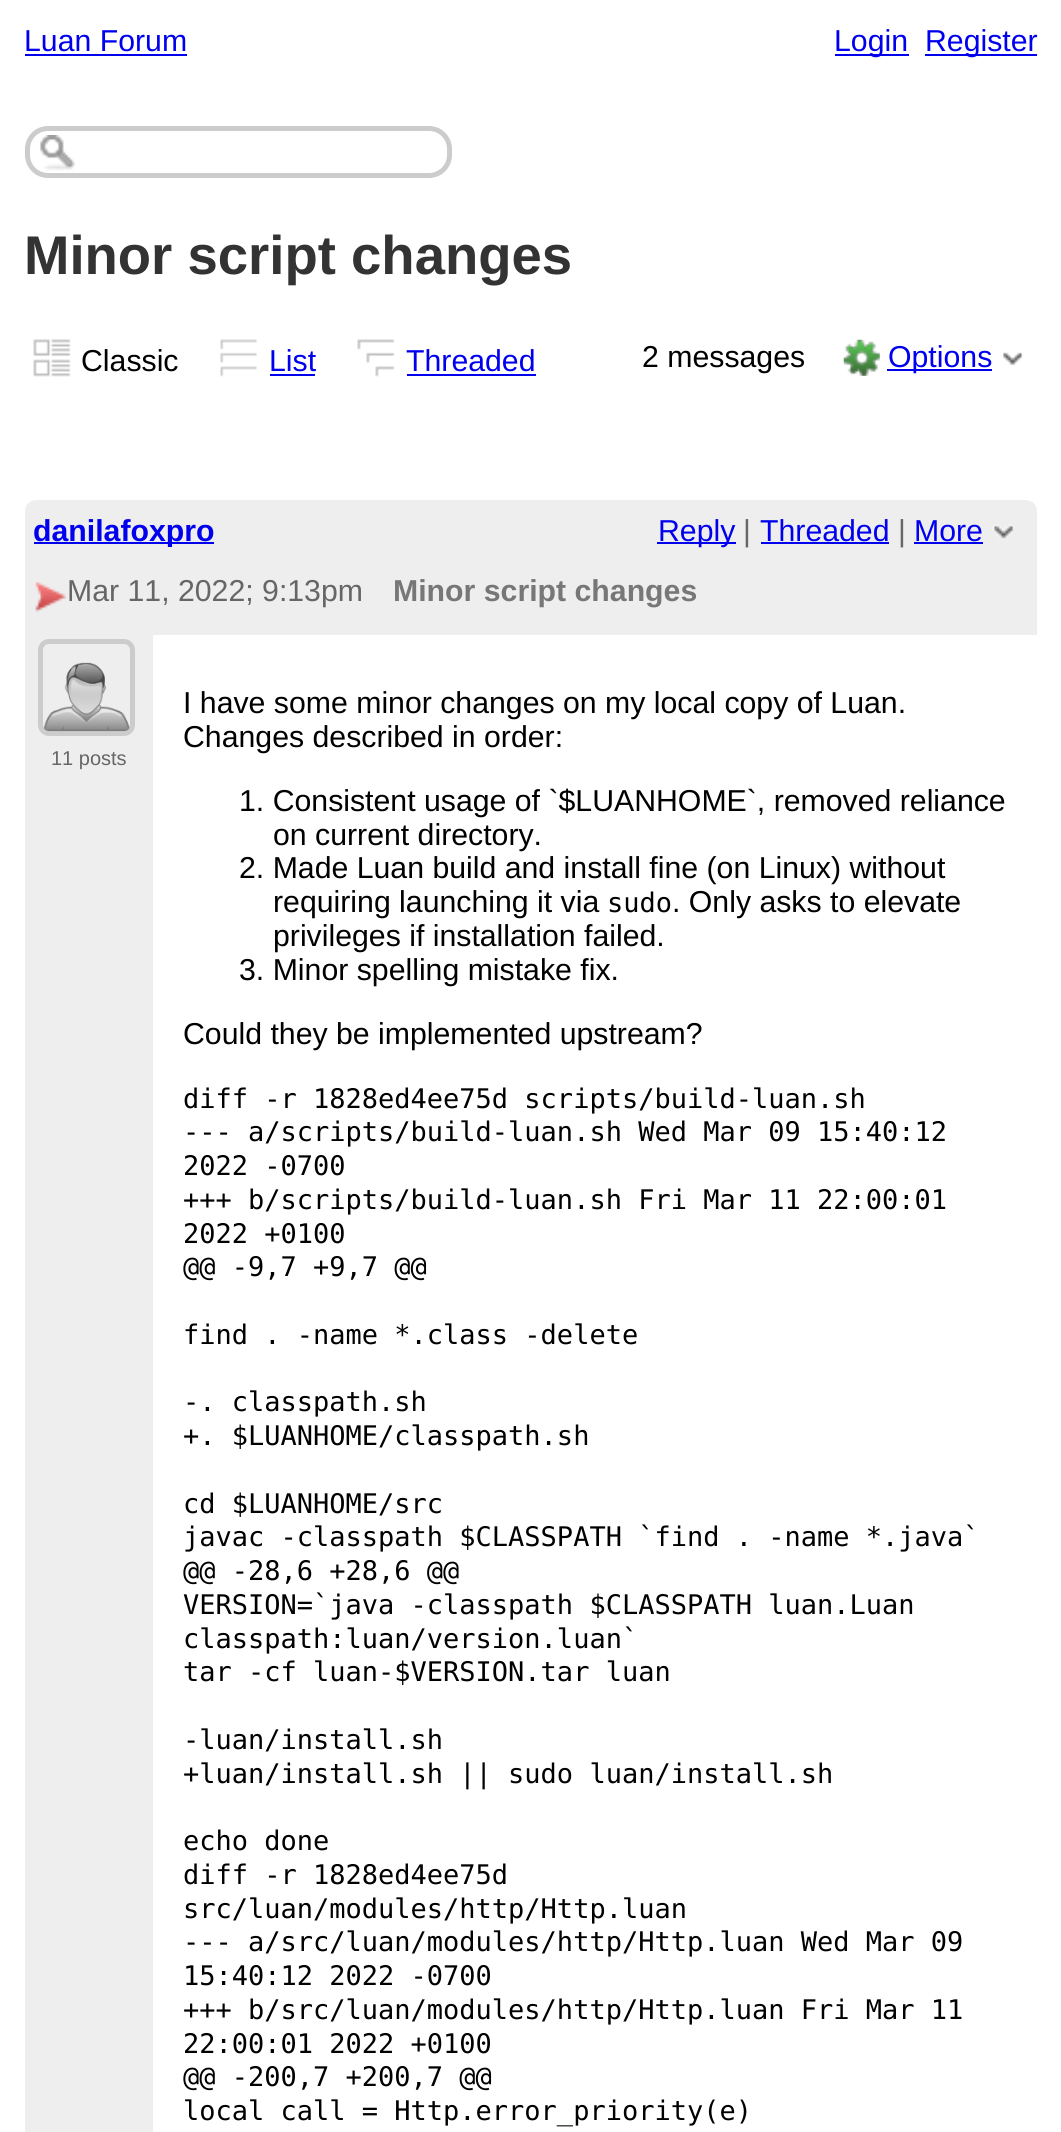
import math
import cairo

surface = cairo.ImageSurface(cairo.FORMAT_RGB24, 1061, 2132)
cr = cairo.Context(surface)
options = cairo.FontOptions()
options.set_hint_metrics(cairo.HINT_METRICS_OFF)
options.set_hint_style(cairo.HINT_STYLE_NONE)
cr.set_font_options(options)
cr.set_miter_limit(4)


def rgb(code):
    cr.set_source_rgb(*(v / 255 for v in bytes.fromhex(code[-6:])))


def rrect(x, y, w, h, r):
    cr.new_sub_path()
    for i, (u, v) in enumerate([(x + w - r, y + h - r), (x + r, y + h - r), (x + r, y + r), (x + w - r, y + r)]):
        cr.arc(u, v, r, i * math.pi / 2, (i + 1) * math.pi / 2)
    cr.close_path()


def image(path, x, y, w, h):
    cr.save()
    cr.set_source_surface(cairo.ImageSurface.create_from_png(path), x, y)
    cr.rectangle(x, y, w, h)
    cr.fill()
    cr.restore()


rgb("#ffffff")
cr.paint()
for x, y, w, h, color in [
    (25, 54, 162, 2, "#0000ee"),
    (835, 54, 74, 2, "#0000ee"),
    (925, 54, 112, 2, "#0000ee"),
]:
    rgb(color)
    cr.rectangle(x, y, w, h)
    cr.fill()
image("img/1.png", 40, 135, 35, 36)
rrect(27.5, 128.5, 422, 47, 20.5)
rgb("#cccccc")
cr.set_line_width(5)
cr.stroke()
image("img/2.png", 33, 339, 38, 38)
image("img/3.png", 220, 339, 37, 38)
rgb("#0000ee")
cr.rectangle(270, 374, 45, 2)
cr.fill()
image("img/4.png", 357, 339, 38, 38)
cr.rectangle(407, 374, 129, 2)
cr.fill()
image("img/5.png", 843, 339, 37, 37)
cr.rectangle(887, 369, 105, 2)
cr.fill()
image("img/6.png", 1003, 352, 20, 14)
rgb("#eeeeee")
cr.new_path()
cr.move_to(36, 500)
cr.line_to(1026, 500)
cr.curve_to(1032, 500, 1037, 505, 1037, 511)
cr.line_to(1037, 635)
cr.line_to(25, 635)
cr.line_to(25, 511)
cr.curve_to(25, 505, 30, 500, 36, 500)
cr.close_path()
cr.fill()
for x, y, w, h, color in [
    (34, 542, 180, 2, "#0000ee"),
    (657, 542, 79, 2, "#0000ee"),
    (761, 542, 128, 2, "#0000ee"),
    (914, 542, 69, 2, "#0000ee"),
]:
    rgb(color)
    cr.rectangle(x, y, w, h)
    cr.fill()
image("img/7.png", 992, 525, 22, 15)
image("img/8.png", 35, 582, 32, 31)
rgb("#eeeeee")
cr.rectangle(25, 635, 128, 1497)
cr.fill()
rrect(40.5, 641.5, 92, 92, 8.5)
rgb("#cccccc")
cr.stroke()
image("img/9.png", 43, 662, 87, 70)
cr.select_font_face("Liberation Sans")
cr.set_font_size(30.25)
rgb("#0000ee")
for x, y, s in [
    (24, 51, "Luan Forum"),
    (834, 51, "Login"),
    (925, 51, "Register"),
]:
    cr.move_to(x, y)
    cr.show_text(s)
cr.select_font_face("Liberation Sans", cairo.FONT_SLANT_NORMAL, cairo.FONT_WEIGHT_BOLD)
cr.set_font_size(54.5)
rgb("#333333")
cr.move_to(24, 274)
cr.show_text("Minor script changes")
cr.select_font_face("Liberation Sans")
cr.set_font_size(30.25)
rgb("#000000")
cr.move_to(81, 371)
cr.show_text("Classic")
rgb("#0000ee")
cr.move_to(269, 371)
cr.show_text("List")
cr.move_to(406, 371)
cr.show_text("Threaded")
rgb("#000000")
cr.move_to(642, 367)
cr.show_text("2 messages")
rgb("#0000ee")
cr.move_to(888, 367)
cr.show_text("Options")
cr.save()
cr.rectangle(34, 513, 180, 34)
cr.clip()
cr.select_font_face("Liberation Sans", cairo.FONT_SLANT_NORMAL, cairo.FONT_WEIGHT_BOLD)
cr.move_to(33, 541)
cr.show_text("danilafoxpro")
cr.restore()
cr.move_to(658, 541)
cr.show_text("Reply")
rgb("#666666")
cr.move_to(743, 541)
cr.show_text("|")
rgb("#0000ee")
cr.move_to(760, 541)
cr.show_text("Threaded")
rgb("#666666")
cr.move_to(898, 541)
cr.show_text("|")
rgb("#0000ee")
cr.move_to(914, 541)
cr.show_text("More")
rgb("#666666")
cr.move_to(67, 601)
cr.show_text("Mar 11, 2022; 9:13pm")
cr.select_font_face("Liberation Sans", cairo.FONT_SLANT_NORMAL, cairo.FONT_WEIGHT_BOLD)
rgb("#777777")
cr.move_to(393, 601)
cr.show_text("Minor script changes")
cr.select_font_face("Liberation Sans")
cr.set_font_size(20)
rgb("#666666")
cr.move_to(51, 765)
cr.show_text("11 posts")
cr.set_font_size(30.25)
rgb("#000000")
for x, y, s in [
    (183, 713, "I have some minor changes on my local copy of Luan."),
    (183, 747, "Changes described in order:"),
    (239, 811, "1. Consistent usage of `$LUANHOME`, removed reliance"),
    (273, 845, "on current directory."),
    (239, 878, "2. Made Luan build and install fine (on Linux) without"),
    (273, 912, "requiring launching it via"),
]:
    cr.move_to(x, y)
    cr.show_text(s)
cr.select_font_face("DejaVu Sans Mono")
cr.set_font_size(27)
cr.move_to(607, 912)
cr.show_text("sudo")
cr.select_font_face("Liberation Sans")
cr.set_font_size(30.25)
for x, y, s in [
    (672, 912, ". Only asks to elevate"),
    (273, 946, "privileges if installation failed."),
    (239, 980, "3. Minor spelling mistake fix."),
    (183, 1044, "Could they be implemented upstream?"),
]:
    cr.move_to(x, y)
    cr.show_text(s)
cr.select_font_face("DejaVu Sans Mono")
cr.set_font_size(27)
for x, y, s in [
    (183, 1108, "diff -r 1828ed4ee75d scripts/build-luan.sh"),
    (183, 1141, "--- a/scripts/build-luan.sh Wed Mar 09 15:40:12"),
    (183, 1175, "2022 -0700"),
    (183, 1209, "+++ b/scripts/build-luan.sh Fri Mar 11 22:00:01"),
    (183, 1243, "2022 +0100"),
    (183, 1276, "@@ -9,7 +9,7 @@"),
    (183, 1344, "find . -name *.class -delete"),
    (183, 1411, "-. classpath.sh"),
    (183, 1445, "+. $LUANHOME/classpath.sh"),
    (183, 1513, "cd $LUANHOME/src"),
    (183, 1546, "javac -classpath $CLASSPATH `find . -name *.java`"),
    (183, 1580, "@@ -28,6 +28,6 @@"),
    (183, 1614, "VERSION=`java -classpath $CLASSPATH luan.Luan"),
    (183, 1648, "classpath:luan/version.luan`"),
    (183, 1681, "tar -cf luan-$VERSION.tar luan"),
    (183, 1749, "-luan/install.sh"),
    (183, 1783, "+luan/install.sh || sudo luan/install.sh"),
    (183, 1850, "echo done"),
    (183, 1884, "diff -r 1828ed4ee75d"),
    (183, 1918, "src/luan/modules/http/Http.luan"),
    (183, 1951, "--- a/src/luan/modules/http/Http.luan Wed Mar 09"),
    (183, 1985, "15:40:12 2022 -0700"),
    (183, 2019, "+++ b/src/luan/modules/http/Http.luan Fri Mar 11"),
    (183, 2053, "22:00:01 2022 +0100"),
    (183, 2086, "@@ -200,7 +200,7 @@"),
    (183, 2120, "local call = Http.error_priority(e)"),
]:
    cr.move_to(x, y)
    cr.show_text(s)
surface.write_to_png("page.png")
